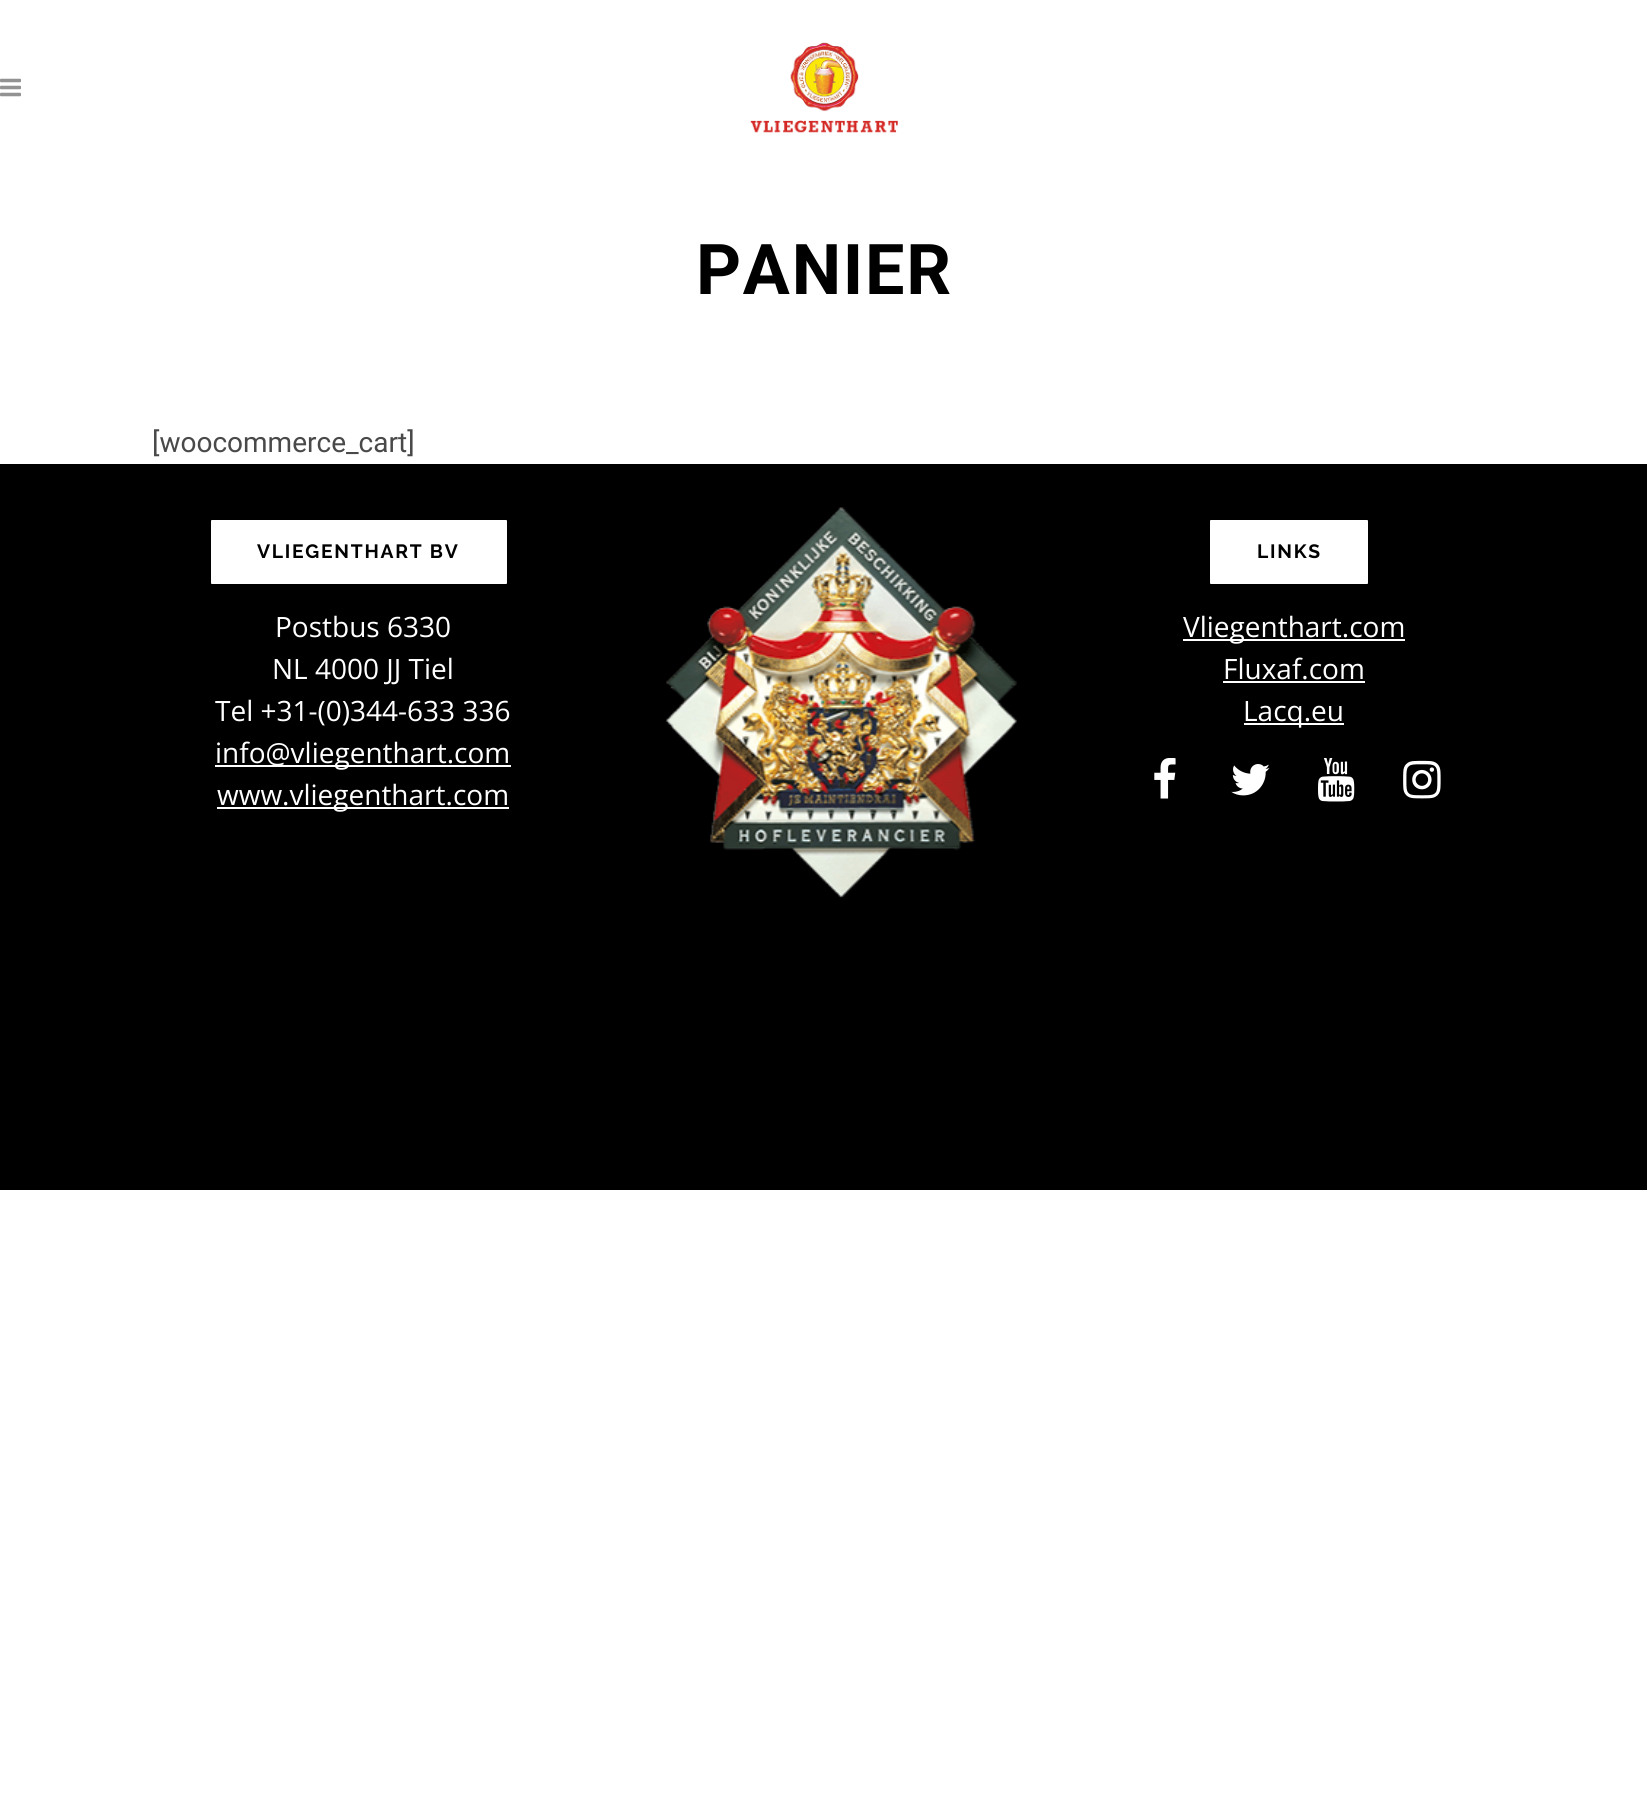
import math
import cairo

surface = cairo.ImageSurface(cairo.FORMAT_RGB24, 1647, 1793)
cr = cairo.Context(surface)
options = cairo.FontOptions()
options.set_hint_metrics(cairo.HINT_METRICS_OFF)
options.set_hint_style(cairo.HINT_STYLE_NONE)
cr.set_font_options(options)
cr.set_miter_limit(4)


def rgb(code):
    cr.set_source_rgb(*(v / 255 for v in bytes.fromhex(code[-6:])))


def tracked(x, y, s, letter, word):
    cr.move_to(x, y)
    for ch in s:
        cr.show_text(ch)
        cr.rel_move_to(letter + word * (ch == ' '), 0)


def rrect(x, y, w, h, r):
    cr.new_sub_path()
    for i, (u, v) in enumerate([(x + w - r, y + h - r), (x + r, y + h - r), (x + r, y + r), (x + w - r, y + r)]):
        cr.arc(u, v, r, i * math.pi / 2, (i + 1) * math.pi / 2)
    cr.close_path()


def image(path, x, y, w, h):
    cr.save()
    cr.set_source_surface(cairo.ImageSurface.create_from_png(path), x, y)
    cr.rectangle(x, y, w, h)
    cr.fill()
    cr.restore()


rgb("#ffffff")
cr.paint()
image("img/1.png", 0, 78, 21, 19)
image("img/2.png", 750, 42, 148, 91)
rgb("#000000")
cr.rectangle(0, 464, 1647, 726)
cr.fill()
rgb("#ffffff")
rrect(209, 518, 300, 68, 3)
cr.fill_preserve()
rgb("#000000")
cr.set_line_width(4)
cr.stroke()
rgb("#ffffff")
cr.rectangle(215, 765, 296, 2)
cr.fill()
cr.rectangle(217, 807, 292, 2)
cr.fill()
image("img/3.png", 666, 507, 351, 391)
rrect(1208, 518, 162, 68, 3)
cr.fill_preserve()
rgb("#000000")
cr.stroke()
for x, y, w, h, color in [
    (1183, 639, 222, 2, "#ffffff"),
    (1223, 681, 142, 2, "#ffffff"),
    (1244, 723, 100, 2, "#ffffff"),
]:
    rgb(color)
    cr.rectangle(x, y, w, h)
    cr.fill()
image("img/4.png", 1154, 758, 22, 41)
image("img/5.png", 1231, 764, 39, 32)
image("img/6.png", 1318, 758, 37, 44)
image("img/7.png", 1403, 760, 38, 39)
cr.select_font_face("Roboto", cairo.FONT_SLANT_NORMAL, cairo.FONT_WEIGHT_BOLD)
cr.set_font_size(70)
rgb("#000000")
tracked(696, 294, "PANIER", 1.75, 0)
cr.select_font_face("Roboto")
cr.set_font_size(28)
rgb("#494949")
cr.move_to(152, 452)
cr.show_text("[woocommerce_cart]")
cr.select_font_face("Raleway", cairo.FONT_SLANT_NORMAL, cairo.FONT_WEIGHT_BOLD)
cr.set_font_size(19.25)
rgb("#000000")
tracked(257, 558, "VLIEGENTHART BV", 1.75, 0)
cr.select_font_face("Open Sans")
cr.set_font_size(28)
rgb("#ffffff")
for x, y, s in [
    (275, 637, "Postbus 6330"),
    (272, 679, "NL 4000 JJ Tiel"),
    (215, 721, "Tel +31-(0)344-633 336"),
    (215, 763, "info@vliegenthart.com"),
    (217, 805, "www.vliegenthart.com"),
]:
    cr.move_to(x, y)
    cr.show_text(s)
cr.select_font_face("Raleway", cairo.FONT_SLANT_NORMAL, cairo.FONT_WEIGHT_BOLD)
cr.set_font_size(19.25)
rgb("#000000")
tracked(1257, 558, "LINKS", 1.75, 0)
cr.select_font_face("Open Sans")
cr.set_font_size(28)
rgb("#ffffff")
for x, y, s in [
    (1183, 637, "Vliegenthart.com"),
    (1223, 679, "Fluxaf.com"),
    (1243, 721, "Lacq.eu"),
]:
    cr.move_to(x, y)
    cr.show_text(s)
surface.write_to_png("page.png")
